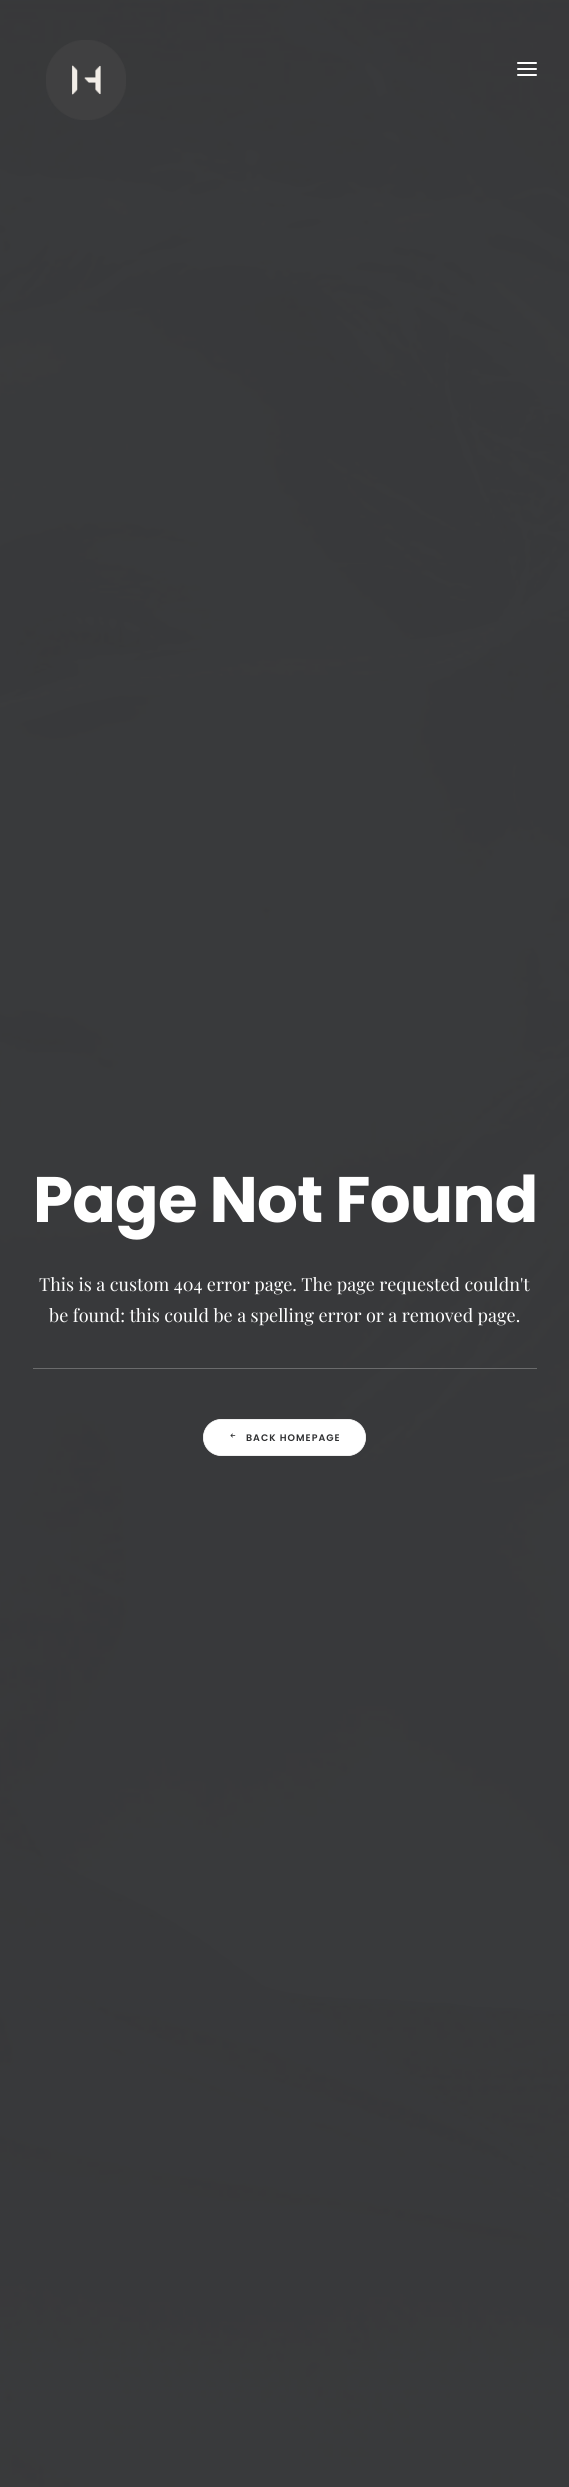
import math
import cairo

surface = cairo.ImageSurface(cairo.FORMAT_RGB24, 569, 2487)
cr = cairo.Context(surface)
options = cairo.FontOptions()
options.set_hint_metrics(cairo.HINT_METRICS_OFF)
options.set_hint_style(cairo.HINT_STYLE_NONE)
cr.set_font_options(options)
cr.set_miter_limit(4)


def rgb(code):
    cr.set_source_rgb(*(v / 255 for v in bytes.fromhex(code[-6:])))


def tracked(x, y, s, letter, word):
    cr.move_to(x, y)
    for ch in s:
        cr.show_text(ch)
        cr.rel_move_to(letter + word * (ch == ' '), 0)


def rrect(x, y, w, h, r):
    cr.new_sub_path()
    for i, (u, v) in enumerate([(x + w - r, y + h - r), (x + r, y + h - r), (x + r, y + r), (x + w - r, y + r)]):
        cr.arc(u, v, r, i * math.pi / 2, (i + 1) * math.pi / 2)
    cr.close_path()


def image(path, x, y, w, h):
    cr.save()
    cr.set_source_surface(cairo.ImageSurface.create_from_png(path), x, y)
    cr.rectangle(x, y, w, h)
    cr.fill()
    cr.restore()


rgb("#ffffff")
cr.paint()
image("img/2.png", 0, 0, 569, 2487)
image("img/1.png", 46, 40, 80, 80)
rgb("#ffffff")
rrect(517, 68, 20, 2, 1)
cr.fill()
rrect(517, 62, 20, 2, 1)
cr.fill()
rrect(517, 74, 20, 2, 1)
cr.fill()
rgb("#6a6b6c")
cr.rectangle(33, 1368, 504, 1)
cr.fill()
rgb("#ffffff")
rrect(203.4, 1419.4, 162.2, 36.2, 18.1)
cr.fill_preserve()
cr.set_line_width(0.8)
cr.stroke()
image("img/3.png", 230, 1433, 6, 5)
cr.select_font_face("Poppins", cairo.FONT_SLANT_NORMAL, cairo.FONT_WEIGHT_BOLD)
cr.set_font_size(64.25)
tracked(33, 1222, "Page Not Found", -0.8, 0)
cr.select_font_face("Playfair Display")
cr.set_font_size(18)
cr.move_to(39, 1291)
cr.show_text("This is a custom 404 error page. The page requested couldn't")
cr.move_to(49, 1322)
cr.show_text("be found: this could be a spelling error or a removed page.")
cr.select_font_face("Poppins SemiBold")
cr.set_font_size(9.5)
rgb("#303133")
tracked(246, 1441, "BACK HOMEPAGE", 1, 0)
surface.write_to_png("page.png")
